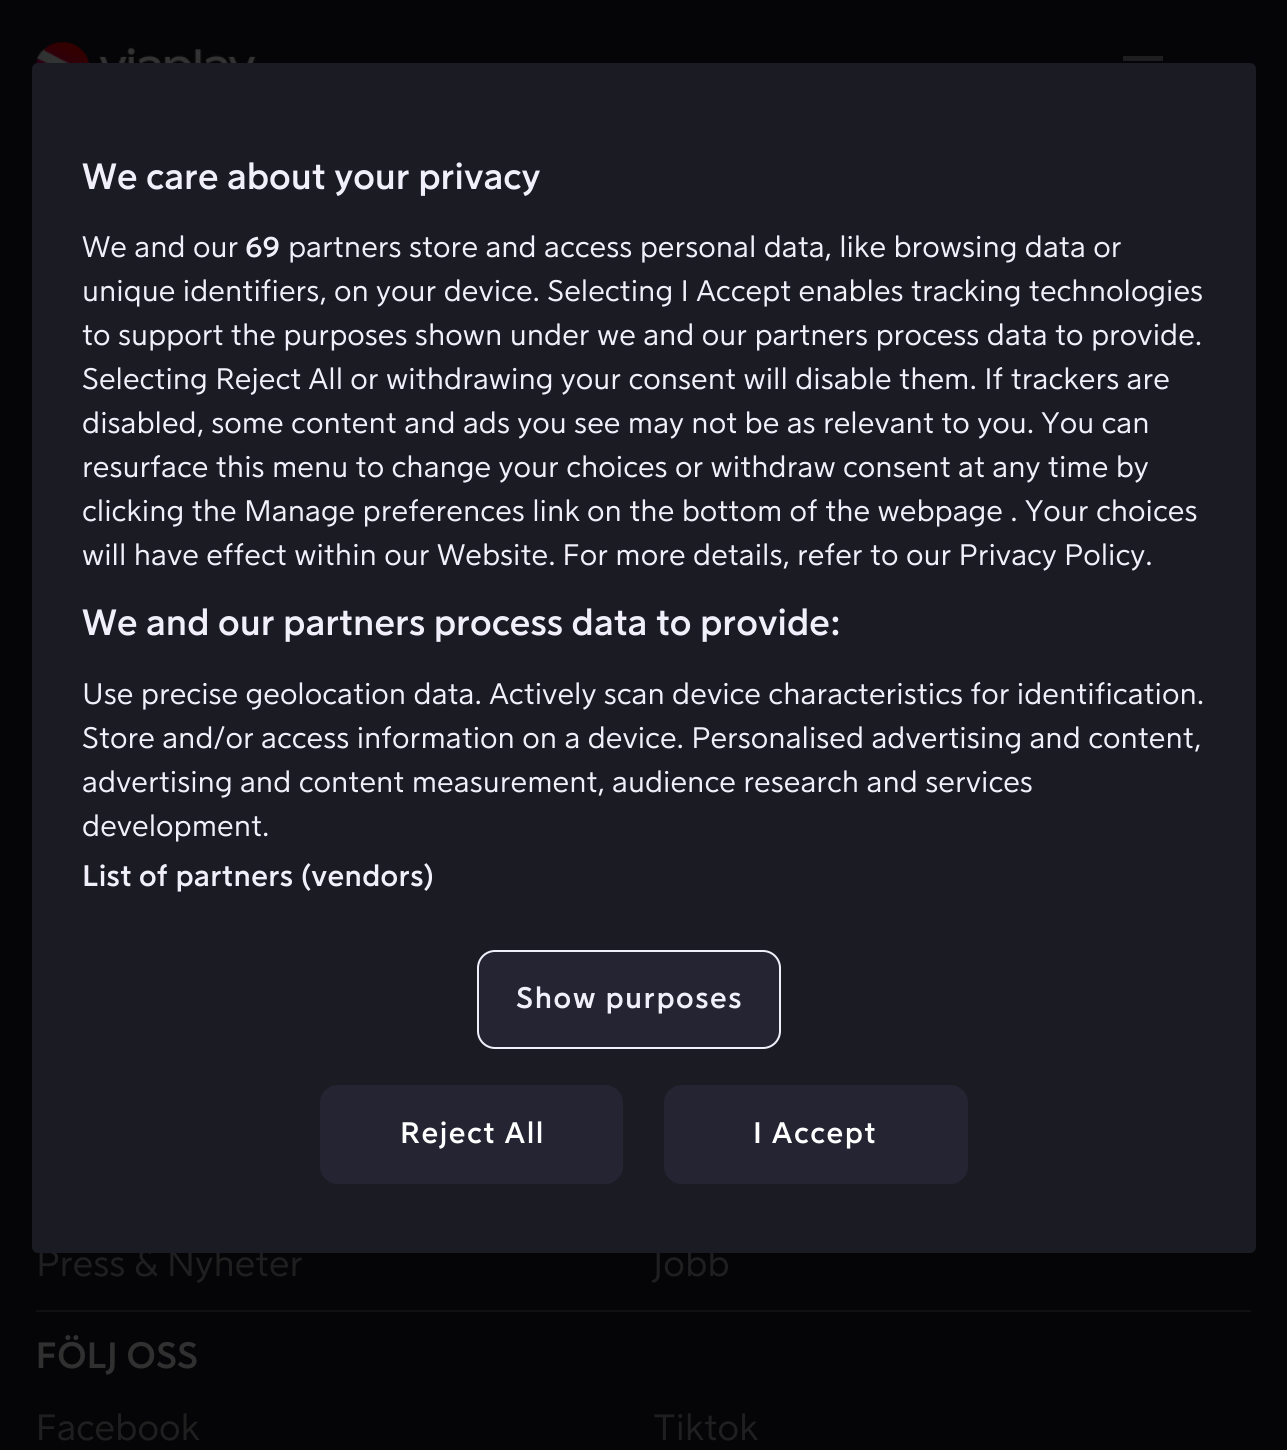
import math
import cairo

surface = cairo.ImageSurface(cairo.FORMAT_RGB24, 1287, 1450)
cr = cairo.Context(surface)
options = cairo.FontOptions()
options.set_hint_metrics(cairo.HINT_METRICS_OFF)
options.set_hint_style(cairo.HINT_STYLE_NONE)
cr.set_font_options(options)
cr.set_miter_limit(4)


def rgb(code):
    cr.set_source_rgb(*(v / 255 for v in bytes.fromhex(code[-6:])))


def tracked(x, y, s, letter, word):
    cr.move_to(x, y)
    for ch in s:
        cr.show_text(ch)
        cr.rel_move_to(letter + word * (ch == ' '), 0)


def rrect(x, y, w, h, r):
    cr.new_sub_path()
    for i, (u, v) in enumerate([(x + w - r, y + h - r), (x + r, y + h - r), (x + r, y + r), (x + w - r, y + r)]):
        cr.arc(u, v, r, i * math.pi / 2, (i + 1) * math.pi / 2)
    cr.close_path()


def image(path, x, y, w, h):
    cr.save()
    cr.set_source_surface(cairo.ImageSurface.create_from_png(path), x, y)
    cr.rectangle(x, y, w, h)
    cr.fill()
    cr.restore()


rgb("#050507")
cr.paint()
image("img/1.png", 36, 42, 220, 22)
rgb("#1e1e20")
cr.set_fill_rule(cairo.FILL_RULE_EVEN_ODD)
cr.new_path()
cr.move_to(1125, 56)
cr.line_to(1123, 56)
cr.line_to(1123, 61)
cr.line_to(1163, 61)
cr.line_to(1163, 56)
cr.close_path()
cr.move_to(1123, 68)
cr.line_to(1163, 68)
cr.line_to(1163, 72)
cr.line_to(1123, 72)
cr.close_path()
cr.move_to(1123, 79)
cr.line_to(1163, 79)
cr.line_to(1163, 83)
cr.line_to(1123, 83)
cr.close_path()
cr.fill()
rgb("#101013")
cr.rectangle(36, 1310, 1215, 2)
cr.fill()
cr.select_font_face("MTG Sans")
cr.set_font_size(36)
rgb("#1f1f20")
cr.move_to(36, 1276)
cr.show_text("Press & Nyheter")
cr.move_to(653, 1276)
cr.show_text("Jobb")
rgb("#1b1b24")
rrect(32, 63, 1224, 1190, 6)
cr.fill()
rgb("#252433")
rrect(478, 951, 302, 97, 17)
cr.fill_preserve()
rgb("#f1f0fa")
cr.stroke()
cr.select_font_face("MTG Sans", cairo.FONT_SLANT_NORMAL, cairo.FONT_WEIGHT_BOLD)
cr.set_font_size(29.25)
tracked(516, 1008, "Show purposes", 1.5, 0)
rgb("#252433")
rrect(665, 1086, 302, 97, 17)
cr.fill_preserve()
cr.stroke()
rgb("#ffffff")
tracked(753, 1143, "I Accept", 1.5, 0)
rgb("#252433")
rrect(321, 1086, 301, 97, 17)
cr.fill_preserve()
cr.stroke()
rgb("#ffffff")
tracked(400, 1143, "Reject All", 1.5, 0)
rgb("#f1f0fa")
tracked(82, 886, "List of partners (vendors)", 0.3, 0)
cr.select_font_face("MTG Sans")
for x, y, s in [
    (82, 836, "development."),
    (82, 792, "advertising and content measurement, audience research and services"),
    (82, 748, "Store and/or access information on a device. Personalised advertising and content,"),
    (82, 704, "Use precise geolocation data. Actively scan device characteristics for identification."),
]:
    cr.move_to(x, y)
    cr.show_text(s)
cr.select_font_face("MTG Sans", cairo.FONT_SLANT_NORMAL, cairo.FONT_WEIGHT_BOLD)
cr.set_font_size(36)
cr.move_to(82, 635)
cr.show_text("We and our partners process data to provide:")
cr.select_font_face("MTG Sans")
cr.set_font_size(29.25)
for x, y, s in [
    (82, 565, "will have effect within our Website. For more details, refer to our Privacy Policy."),
    (82, 521, "clicking the Manage preferences link on the bottom of the webpage . Your choices"),
    (82, 477, "resurface this menu to change your choices or withdraw consent at any time by"),
    (82, 433, "disabled, some content and ads you see may not be as relevant to you. You can"),
    (82, 389, "Selecting Reject All or withdrawing your consent will disable them. If trackers are"),
    (82, 345, "to support the purposes shown under we and our partners process data to provide."),
    (82, 301, "unique identifiers, on your device. Selecting I Accept enables tracking technologies"),
    (288, 257, "partners store and access personal data, like browsing data or"),
]:
    cr.move_to(x, y)
    cr.show_text(s)
cr.select_font_face("MTG Sans", cairo.FONT_SLANT_NORMAL, cairo.FONT_WEIGHT_BOLD)
cr.move_to(245, 257)
cr.show_text("69")
cr.select_font_face("MTG Sans")
cr.move_to(82, 257)
cr.show_text("We and our")
cr.select_font_face("MTG Sans", cairo.FONT_SLANT_NORMAL, cairo.FONT_WEIGHT_BOLD)
cr.set_font_size(36)
cr.move_to(82, 189)
cr.show_text("We care about your privacy")
rgb("#303030")
cr.move_to(36, 1368)
cr.show_text("FÖLJ OSS")
cr.select_font_face("MTG Sans")
rgb("#1f1f20")
cr.move_to(36, 1440)
cr.show_text("Facebook")
cr.move_to(653, 1440)
cr.show_text("Tiktok")
surface.write_to_png("page.png")
